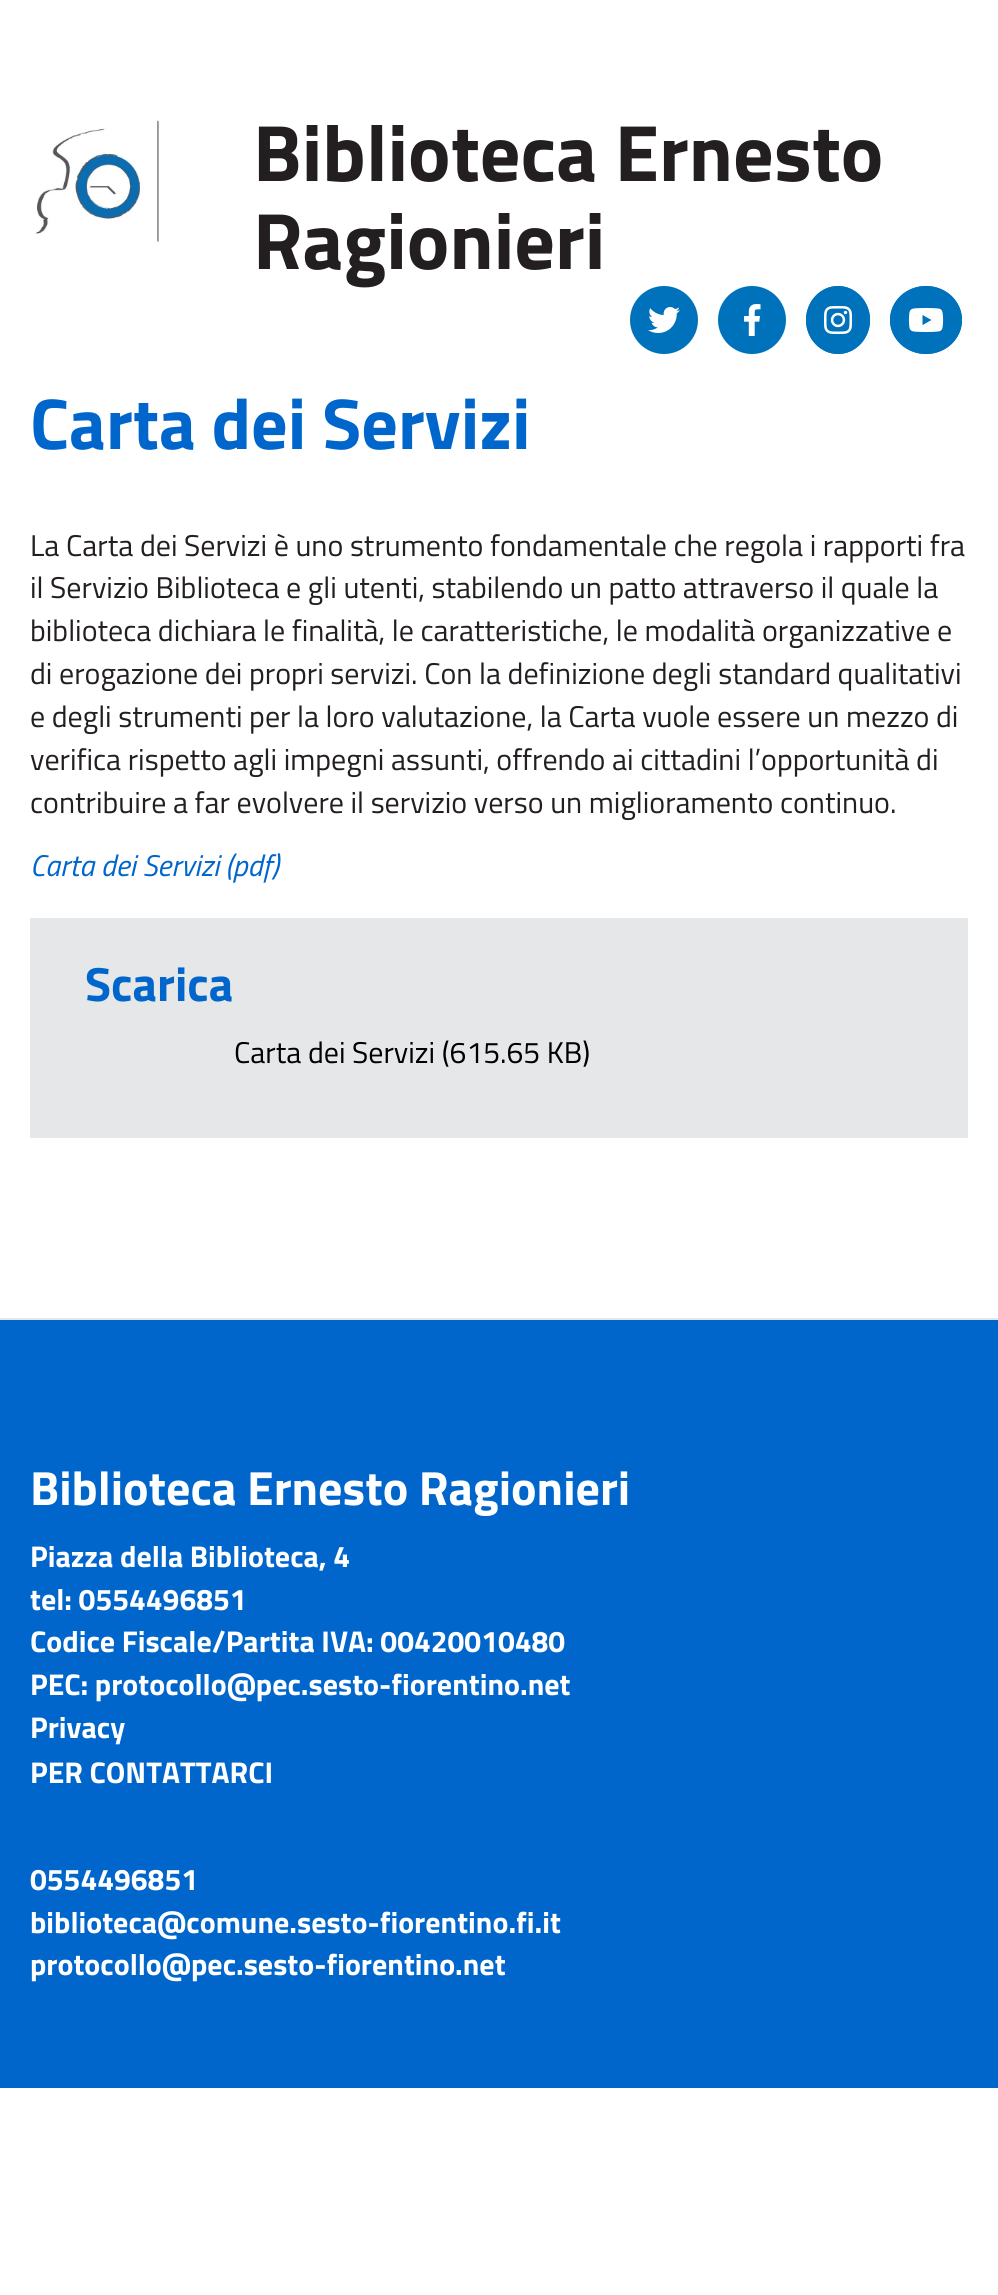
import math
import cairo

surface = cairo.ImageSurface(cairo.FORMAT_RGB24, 998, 2295)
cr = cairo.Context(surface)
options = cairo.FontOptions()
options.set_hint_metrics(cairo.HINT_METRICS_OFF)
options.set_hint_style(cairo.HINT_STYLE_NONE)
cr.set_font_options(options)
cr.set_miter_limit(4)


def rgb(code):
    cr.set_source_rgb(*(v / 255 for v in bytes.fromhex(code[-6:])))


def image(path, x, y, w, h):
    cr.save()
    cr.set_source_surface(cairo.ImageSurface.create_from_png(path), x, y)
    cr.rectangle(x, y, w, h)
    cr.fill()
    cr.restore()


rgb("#ffffff")
cr.paint()
image("img/1.png", 36, 120, 125, 123)
rgb("#0072bc")
cr.arc(664, 320, 33, 0, 2 * math.pi)
cr.fill_preserve()
cr.stroke()
image("img/2.png", 648, 307, 32, 26)
cr.arc(752, 320, 33, 0, 2 * math.pi)
cr.fill_preserve()
cr.stroke()
image("img/3.png", 744, 304, 17, 32)
cr.new_path()
cr.move_to(838, 286)
cr.curve_to(855.5, 286, 870, 301, 870, 320)
cr.curve_to(870, 339, 855.5, 354, 838, 354)
cr.curve_to(820.5, 354, 806, 339, 806, 320)
cr.curve_to(806, 301, 820.5, 286, 838, 286)
cr.close_path()
cr.fill()
cr.new_path()
cr.move_to(838, 287)
cr.curve_to(855, 287, 869, 302, 869, 320)
cr.curve_to(869, 338, 855, 353, 838, 353)
cr.curve_to(821, 353, 807, 338, 807, 320)
cr.curve_to(807, 302, 821, 287, 838, 287)
cr.close_path()
cr.stroke()
image("img/4.png", 824, 306, 28, 28)
cr.new_path()
cr.move_to(926, 286)
cr.curve_to(946, 286, 962, 301, 962, 320)
cr.curve_to(962, 339, 946, 354, 926, 354)
cr.curve_to(906, 354, 890, 339, 890, 320)
cr.curve_to(890, 301, 906, 286, 926, 286)
cr.close_path()
cr.fill()
cr.new_path()
cr.move_to(926, 287)
cr.curve_to(945.5, 287, 961, 302, 961, 320)
cr.curve_to(961, 338, 945.5, 353, 926, 353)
cr.curve_to(906.5, 353, 891, 338, 891, 320)
cr.curve_to(891, 302, 906.5, 287, 926, 287)
cr.close_path()
cr.stroke()
image("img/5.png", 908, 308, 36, 24)
for x, y, w, h, color in [
    (30, 918, 938, 220, "#e6e7e8"),
    (0, 1320, 998, 768, "#0066cc"),
    (0, 1318, 998, 2, "#e5e5e5"),
]:
    rgb(color)
    cr.rectangle(x, y, w, h)
    cr.fill()
cr.select_font_face("Titillium Web", cairo.FONT_SLANT_NORMAL, cairo.FONT_WEIGHT_BOLD)
cr.set_font_size(80)
rgb("#231f20")
cr.move_to(253, 181)
cr.show_text("Biblioteca Ernesto")
cr.move_to(253, 269)
cr.show_text("Ragionieri")
cr.set_font_size(72)
rgb("#0066cc")
cr.move_to(30, 449)
cr.show_text("Carta dei Servizi")
cr.select_font_face("Titillium Web")
cr.set_font_size(30)
rgb("#231f20")
for x, y, s in [
    (30, 556, "La Carta dei Servizi è uno strumento fondamentale che regola i rapporti fra"),
    (30, 598, "il Servizio Biblioteca e gli utenti, stabilendo un patto attraverso il quale la"),
    (30, 641, "biblioteca dichiara le finalità, le caratteristiche, le modalità organizzative e"),
    (30, 684, "di erogazione dei propri servizi. Con la definizione degli standard qualitativi"),
    (30, 727, "e degli strumenti per la loro valutazione, la Carta vuole essere un mezzo di"),
    (30, 770, "verifica rispetto agli impegni assunti, offrendo ai cittadini l’opportunità di"),
    (30, 813, "contribuire a far evolvere il servizio verso un miglioramento continuo."),
]:
    cr.move_to(x, y)
    cr.show_text(s)
cr.select_font_face("Titillium Web", cairo.FONT_SLANT_ITALIC)
rgb("#0066cc")
cr.move_to(30, 876)
cr.show_text("Carta dei Servizi (pdf)")
cr.select_font_face("Titillium Web", cairo.FONT_SLANT_NORMAL, cairo.FONT_WEIGHT_BOLD)
cr.set_font_size(48)
cr.move_to(85, 1001)
cr.show_text("Scarica")
cr.select_font_face("Titillium Web")
cr.set_font_size(30)
rgb("#000000")
cr.move_to(234, 1063)
cr.show_text("Carta dei Servizi (615.65 KB)")
cr.select_font_face("Titillium Web", cairo.FONT_SLANT_NORMAL, cairo.FONT_WEIGHT_BOLD)
cr.set_font_size(48)
rgb("#ffffff")
cr.move_to(30, 1505)
cr.show_text("Biblioteca Ernesto Ragionieri")
cr.set_font_size(30)
for x, y, s in [
    (30, 1567, "Piazza della Biblioteca, 4"),
    (30, 1610, "tel: 0554496851"),
    (30, 1652, "Codice Fiscale/Partita IVA: 00420010480"),
    (30, 1695, "PEC: protocollo@pec.sesto-fiorentino.net"),
    (30, 1738, "Privacy"),
    (30, 1783, "PER CONTATTARCI"),
    (30, 1890, "0554496851"),
    (30, 1933, "biblioteca@comune.sesto-fiorentino.fi.it"),
    (30, 1975, "protocollo@pec.sesto-fiorentino.net"),
]:
    cr.move_to(x, y)
    cr.show_text(s)
surface.write_to_png("page.png")
